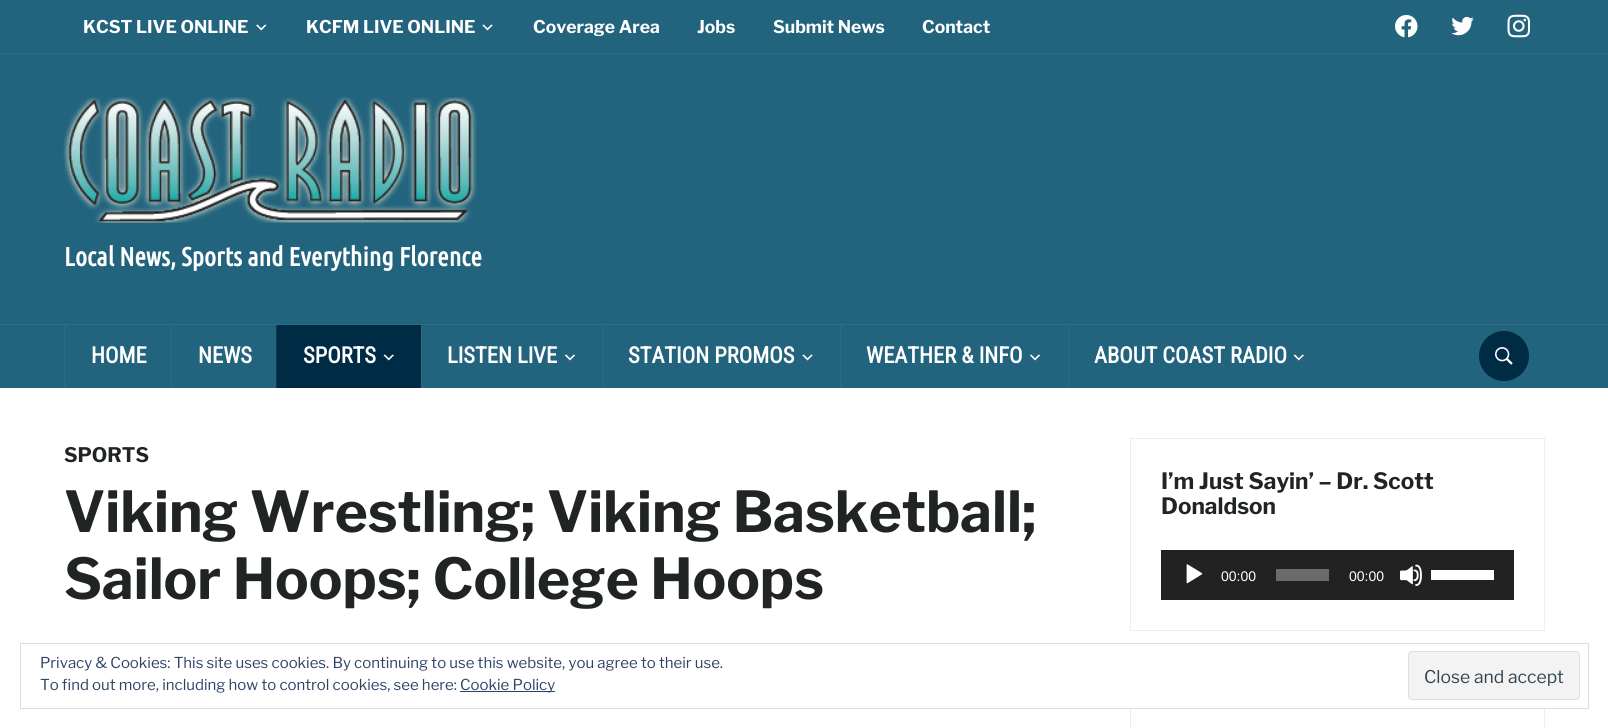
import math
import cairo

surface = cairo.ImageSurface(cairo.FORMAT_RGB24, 1608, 728)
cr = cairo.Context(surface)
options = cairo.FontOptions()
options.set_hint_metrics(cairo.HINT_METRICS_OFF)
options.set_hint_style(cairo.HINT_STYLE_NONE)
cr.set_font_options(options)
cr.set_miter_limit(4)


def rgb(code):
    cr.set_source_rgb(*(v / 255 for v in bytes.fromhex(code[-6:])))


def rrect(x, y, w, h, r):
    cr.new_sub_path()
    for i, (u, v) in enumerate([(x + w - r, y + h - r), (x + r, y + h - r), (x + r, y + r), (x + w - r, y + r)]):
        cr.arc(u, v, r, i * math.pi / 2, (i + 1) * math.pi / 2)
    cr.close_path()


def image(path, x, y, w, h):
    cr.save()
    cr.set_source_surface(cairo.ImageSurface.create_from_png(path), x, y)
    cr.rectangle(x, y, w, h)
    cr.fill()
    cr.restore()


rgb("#ffffff")
cr.paint()
rgb("#22647d")
cr.rectangle(0, 0, 1608, 388)
cr.fill()
rgb("#2d6c84")
cr.rectangle(0, 53, 1608, 1)
cr.fill()
image("img/1.png", 256, 24, 11, 7)
image("img/2.png", 482, 24, 11, 7)
image("img/3.png", 1395, 15, 23, 23)
image("img/4.png", 1451, 16, 23, 20)
image("img/5.png", 1507, 14, 23, 24)
image("img/6.png", 63, 97, 415, 126)
for x, y, w, h, color in [
    (0, 324, 1608, 1, "#2d6c84"),
    (64, 325, 1, 63, "#2d6c84"),
    (171, 325, 1, 63, "#2d6c84"),
    (277, 325, 144, 63, "#002b45"),
    (276, 325, 1, 63, "#0d364e"),
]:
    rgb(color)
    cr.rectangle(x, y, w, h)
    cr.fill()
image("img/7.png", 383, 354, 11, 7)
rgb("#2d6c84")
cr.rectangle(421, 325, 1, 63)
cr.fill()
image("img/8.png", 564, 354, 12, 7)
cr.rectangle(603, 325, 1, 63)
cr.fill()
image("img/2.png", 802, 354, 11, 7)
cr.rectangle(840, 325, 1, 63)
cr.fill()
image("img/8.png", 1029, 354, 12, 7)
cr.rectangle(1068, 325, 1, 63)
cr.fill()
image("img/9.png", 1293, 354, 11, 7)
rgb("#002b45")
cr.arc(1504, 356, 25, 0, 2 * math.pi)
cr.fill()
image("img/10.png", 1495, 347, 18, 18)
cr.rectangle(1130.5, 438.5, 414, 192)
rgb("#eeeeee")
cr.set_line_width(1)
cr.stroke()
rgb("#222222")
cr.rectangle(1161, 550, 353, 50)
cr.fill()
image("img/11.png", 1186, 564, 17, 20)
rgb("#6b6b6b")
cr.rectangle(1276, 569, 53, 12)
cr.fill()
image("img/12.png", 1400, 564, 22, 22)
rgb("#ffffff")
cr.rectangle(1431, 570, 63, 10)
cr.fill()
cr.rectangle(1130.5, 706.5, 414, 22)
rgb("#eeeeee")
cr.stroke()
rgb("#ffffff")
cr.rectangle(1130, 706, 415, 2)
cr.fill()
cr.rectangle(20.5, 643.5, 1568, 65)
rgb("#dedede")
cr.stroke()
rgb("#2e4467")
cr.rectangle(460, 691, 95, 1)
cr.fill()
rgb("#f3f3f3")
rrect(1408.5, 651.5, 171, 48, 3.5)
cr.fill_preserve()
rgb("#dedede")
cr.stroke()
cr.select_font_face("Libre Franklin", cairo.FONT_SLANT_NORMAL, cairo.FONT_WEIGHT_BOLD)
cr.set_font_size(17.5)
rgb("#ffffff")
for x, y, s in [
    (83, 33, "KCST LIVE ONLINE"),
    (306, 33, "KCFM LIVE ONLINE"),
    (533, 33, "Coverage Area"),
    (697, 33, "Jobs"),
    (773, 33, "Submit News"),
    (922, 33, "Contact"),
]:
    cr.move_to(x, y)
    cr.show_text(s)
cr.select_font_face("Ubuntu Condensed", cairo.FONT_SLANT_NORMAL, cairo.FONT_WEIGHT_BOLD)
cr.set_font_size(26.25)
cr.move_to(64, 266)
cr.show_text("Local News, Sports and Everything Florence")
cr.select_font_face("Roboto Condensed", cairo.FONT_SLANT_NORMAL, cairo.FONT_WEIGHT_BOLD)
cr.set_font_size(22.5)
for x, y, s in [
    (91, 363, "HOME"),
    (198, 363, "NEWS"),
    (303, 363, "SPORTS"),
    (447, 363, "LISTEN LIVE"),
    (628, 363, "STATION PROMOS"),
    (866, 363, "WEATHER & INFO"),
    (1094, 363, "ABOUT COAST RADIO"),
]:
    cr.move_to(x, y)
    cr.show_text(s)
cr.select_font_face("Libre Franklin", cairo.FONT_SLANT_NORMAL, cairo.FONT_WEIGHT_BOLD)
cr.set_font_size(20)
rgb("#212425")
cr.move_to(64, 462)
cr.show_text("SPORTS")
cr.set_font_size(56.25)
cr.move_to(64, 532)
cr.show_text("Viking Wrestling; Viking Basketball;")
cr.move_to(64, 599)
cr.show_text("Sailor Hoops; College Hoops")
cr.set_font_size(22.5)
cr.move_to(1161, 489)
cr.show_text("I’m Just Sayin’ – Dr. Scott")
cr.move_to(1161, 514)
cr.show_text("Donaldson")
cr.select_font_face("Liberation Sans")
cr.set_font_size(14)
rgb("#ffffff")
cr.move_to(1221, 581)
cr.show_text("00:00")
cr.move_to(1349, 581)
cr.show_text("00:00")
cr.select_font_face("Libre Franklin")
cr.set_font_size(15)
rgb("#2e4467")
for x, y, s in [
    (40, 668, "Privacy & Cookies: This site uses cookies. By continuing to use this website, you agree to their use."),
    (40, 690, "To find out more, including how to control cookies, see here:"),
    (460, 690, "Cookie Policy"),
]:
    cr.move_to(x, y)
    cr.show_text(s)
cr.set_font_size(17.5)
rgb("#2e4453")
cr.move_to(1424, 683)
cr.show_text("Close and accept")
surface.write_to_png("page.png")
